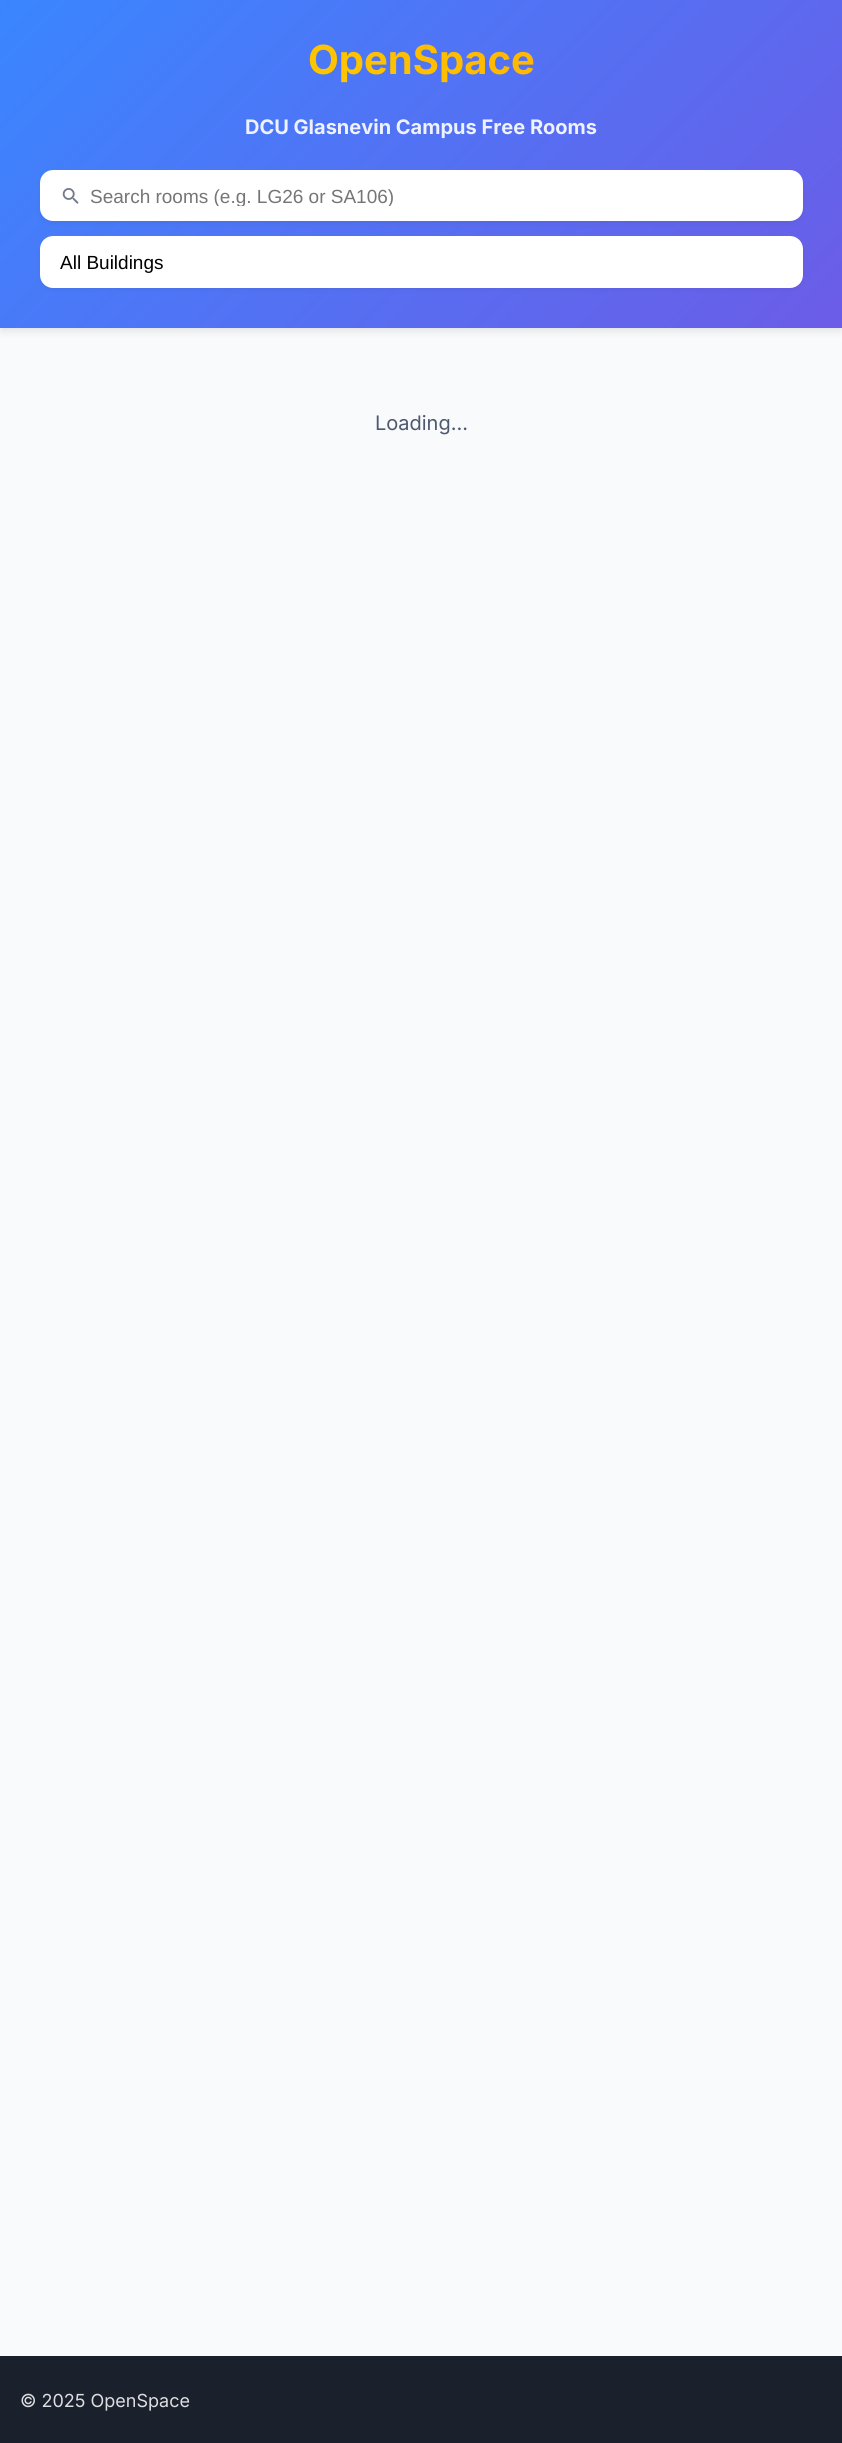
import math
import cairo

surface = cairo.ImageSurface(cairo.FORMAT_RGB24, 842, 2443)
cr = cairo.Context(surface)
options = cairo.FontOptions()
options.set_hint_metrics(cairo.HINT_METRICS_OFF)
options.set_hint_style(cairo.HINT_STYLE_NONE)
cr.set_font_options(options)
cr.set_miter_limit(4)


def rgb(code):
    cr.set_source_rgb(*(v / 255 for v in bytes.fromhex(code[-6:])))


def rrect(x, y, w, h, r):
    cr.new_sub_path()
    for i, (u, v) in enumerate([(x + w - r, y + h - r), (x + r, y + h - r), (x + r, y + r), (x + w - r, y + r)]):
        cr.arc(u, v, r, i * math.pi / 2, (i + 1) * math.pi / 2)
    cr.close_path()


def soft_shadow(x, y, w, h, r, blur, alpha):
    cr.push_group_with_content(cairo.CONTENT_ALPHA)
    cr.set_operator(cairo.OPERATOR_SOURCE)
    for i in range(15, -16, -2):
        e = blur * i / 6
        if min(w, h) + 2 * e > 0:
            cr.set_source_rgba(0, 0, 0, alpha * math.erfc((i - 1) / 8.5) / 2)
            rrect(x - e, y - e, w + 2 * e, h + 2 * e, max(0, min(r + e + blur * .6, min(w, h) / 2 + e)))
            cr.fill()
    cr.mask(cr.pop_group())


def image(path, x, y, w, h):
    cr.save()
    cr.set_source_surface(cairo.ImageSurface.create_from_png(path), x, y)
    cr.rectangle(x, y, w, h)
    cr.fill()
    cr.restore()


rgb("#f8fafc")
cr.paint()
rgb("#000000")
soft_shadow(1, 6, 840, 325, 0, 4, 0.1)
gradient = cairo.LinearGradient(129, -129, 714, 456)
gradient.add_color_stop_rgba(0, 0.227, 0.525, 1, 1)
gradient.add_color_stop_rgba(1, 0.424, 0.361, 0.906, 1)
cr.set_source(gradient)
cr.rectangle(0, 0, 842, 328)
cr.fill()
rgb("#000000")
soft_shadow(40, 173, 763, 51, 13, 2.5, 0.05)
rgb("#ffffff")
rrect(40, 170, 763, 51, 13)
cr.fill()
image("img/1.png", 62, 188, 17, 16)
rgb("#000000")
soft_shadow(40, 239, 763, 51, 13, 2.5, 0.05)
rgb("#ffffff")
rrect(40, 236, 763, 52, 13)
cr.fill()
rgb("#1a202c")
cr.rectangle(0, 2356, 842, 87)
cr.fill()
cr.select_font_face("Inter", cairo.FONT_SLANT_NORMAL, cairo.FONT_WEIGHT_BOLD)
cr.set_font_size(40)
gradient = cairo.LinearGradient(206, 276, 637, -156)
gradient.add_color_stop_rgba(0, 1, 0.843, 0, 1)
gradient.add_color_stop_rgba(1, 1, 0.647, 0, 1)
cr.set_source(gradient)
cr.move_to(308, 74)
cr.show_text("OpenSpace")
cr.set_font_size(20)
rgb("#eef1fe")
cr.move_to(245, 134)
cr.show_text("DCU Glasnevin Campus Free Rooms")
cr.save()
cr.rectangle(90, 185, 698, 21)
cr.clip()
cr.select_font_face("Liberation Sans")
cr.set_font_size(19)
rgb("#757575")
cr.move_to(90, 203)
cr.show_text("Search rooms (e.g. LG26 or SA106)")
cr.restore()
cr.select_font_face("Liberation Sans")
cr.set_font_size(19)
rgb("#000000")
cr.move_to(60, 269)
cr.show_text("All Buildings")
cr.select_font_face("Inter")
cr.set_font_size(20)
rgb("#4f596d")
cr.move_to(375, 430)
cr.show_text("Loading...")
cr.set_font_size(18)
rgb("#dddedf")
cr.move_to(20, 2407)
cr.show_text("© 2025 OpenSpace")
surface.write_to_png("page.png")
